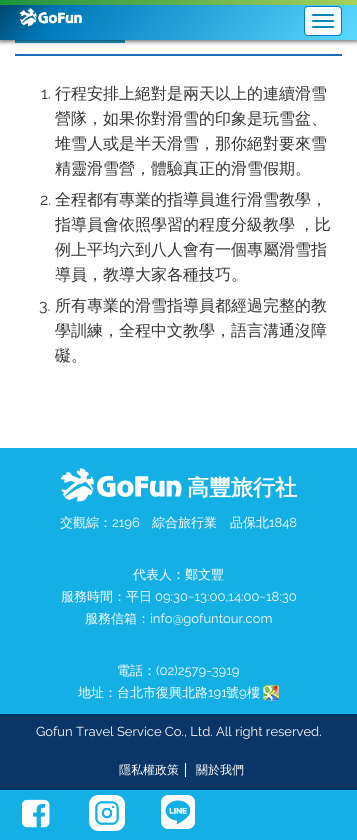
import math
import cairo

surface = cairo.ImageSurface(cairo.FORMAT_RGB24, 357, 840)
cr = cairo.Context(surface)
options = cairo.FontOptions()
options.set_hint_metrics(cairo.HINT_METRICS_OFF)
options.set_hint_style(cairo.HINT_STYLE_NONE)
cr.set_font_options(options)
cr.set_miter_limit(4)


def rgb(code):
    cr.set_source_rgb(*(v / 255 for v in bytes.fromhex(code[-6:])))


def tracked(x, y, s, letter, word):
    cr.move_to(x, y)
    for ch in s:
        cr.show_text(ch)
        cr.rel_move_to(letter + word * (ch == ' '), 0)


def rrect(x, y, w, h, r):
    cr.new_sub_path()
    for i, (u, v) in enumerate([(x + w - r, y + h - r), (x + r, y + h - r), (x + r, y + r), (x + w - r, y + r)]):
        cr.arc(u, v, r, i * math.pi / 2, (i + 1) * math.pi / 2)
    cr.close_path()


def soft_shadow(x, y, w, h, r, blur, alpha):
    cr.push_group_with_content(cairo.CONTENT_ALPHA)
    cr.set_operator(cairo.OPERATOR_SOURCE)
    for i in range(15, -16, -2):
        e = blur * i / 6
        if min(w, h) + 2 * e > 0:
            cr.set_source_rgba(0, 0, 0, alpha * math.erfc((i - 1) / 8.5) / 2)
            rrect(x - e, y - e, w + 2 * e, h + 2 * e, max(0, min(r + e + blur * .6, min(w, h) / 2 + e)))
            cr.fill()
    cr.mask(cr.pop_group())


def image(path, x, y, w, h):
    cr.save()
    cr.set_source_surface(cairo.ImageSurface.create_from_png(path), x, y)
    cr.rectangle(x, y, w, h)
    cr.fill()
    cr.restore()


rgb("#ffffff")
cr.paint()
rgb("#28a0d0")
cr.rectangle(15, 40, 110, 3)
cr.fill()
rgb("#000000")
soft_shadow(0, 2, 357, 40, 0, 2, 0.5)
gradient = cairo.LinearGradient(296, 115, 61, -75)
gradient.add_color_stop_rgba(0, 0.357, 0.851, 1, 1)
gradient.add_color_stop_rgba(0.82, 0, 0.475, 0.733, 1)
gradient.add_color_stop_rgba(1, 0, 0.271, 0.42, 1)
cr.set_source(gradient)
cr.rectangle(0, 5, 357, 35)
cr.fill()
gradient = cairo.LinearGradient(291, -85, 66, 90)
gradient.add_color_stop_rgba(0, 0.655, 0.82, 0.353, 1)
gradient.add_color_stop_rgba(0.89, 0.165, 0.596, 0.267, 1)
gradient.add_color_stop_rgba(1, 0.09, 0.592, 0.212, 1)
cr.set_source(gradient)
cr.rectangle(0, 0, 357, 5)
cr.fill()
cr.set_source_rgba(1, 1, 1, 0.95)
rrect(304.5, 6.5, 37, 29, 3.5)
cr.fill_preserve()
rgb("#007fc6")
cr.set_line_width(1)
cr.stroke()
rgb("#0b84c3")
rrect(312, 14, 22, 2, 1)
cr.fill()
rrect(312, 20, 22, 2, 1)
cr.fill()
rrect(312, 26, 22, 2, 1)
cr.fill()
image("img/1.png", 19, 8, 63, 18)
rgb("#1b6ac0")
cr.rectangle(15, 54, 327, 2)
cr.fill()
rgb("#14afe5")
cr.rectangle(0, 448, 357, 266)
cr.fill()
image("img/2.png", 61, 468, 121, 34)
image("img/3.png", 263, 685, 16, 16)
for x, y, w, h, color in [
    (0, 714, 357, 76, "#0a3667"),
    (185, 763, 1, 14, "#ffffff"),
    (0, 790, 357, 50, "#14afe5"),
]:
    rgb(color)
    cr.rectangle(x, y, w, h)
    cr.fill()
image("img/4.png", 22, 799, 28, 29)
image("img/5.png", 89, 795, 36, 36)
image("img/6.png", 161, 795, 34, 34)
cr.select_font_face("Raleway")
cr.set_font_size(16)
rgb("#333333")
cr.move_to(41, 99)
cr.show_text("1.")
cr.select_font_face("WenQuanYi Zen Hei Medium")
for x, y, s in [
    (55, 99, "行程安排上絕對是兩天以上的連續滑雪"),
    (55, 124, "營隊，如果你對滑雪的印象是玩雪盆、"),
    (55, 149, "堆雪人或是半天滑雪，那你絕對要來雪"),
    (55, 174, "精靈滑雪營，體驗真正的滑雪假期。"),
]:
    cr.move_to(x, y)
    cr.show_text(s)
cr.select_font_face("Raleway")
cr.move_to(40, 205)
cr.show_text("2.")
cr.select_font_face("WenQuanYi Zen Hei Medium")
cr.move_to(55, 205)
cr.show_text("全程都有專業的指導員進行滑雪教學，")
tracked(55, 230, "指導員會依照學習的程度分級教學 ，比", 0, -1)
cr.move_to(55, 255)
cr.show_text("例上平均六到八人會有一個專屬滑雪指")
cr.move_to(55, 280)
cr.show_text("導員，教導大家各種技巧。")
cr.select_font_face("Raleway")
cr.move_to(39, 311)
cr.show_text("3.")
cr.select_font_face("WenQuanYi Zen Hei Medium")
for x, y, s in [
    (55, 311, "所有專業的滑雪指導員都經過完整的教"),
    (55, 336, "學訓練，全程中文教學，語言溝通沒障"),
    (55, 361, "礙。"),
]:
    cr.move_to(x, y)
    cr.show_text(s)
cr.select_font_face("WenQuanYi Zen Hei", cairo.FONT_SLANT_NORMAL, cairo.FONT_WEIGHT_BOLD)
cr.set_font_size(22)
rgb("#ffffff")
cr.move_to(187, 495)
cr.show_text("高豐旅行社")
cr.select_font_face("WenQuanYi Zen Hei Medium")
cr.set_font_size(13)
cr.move_to(60, 527)
cr.show_text("交觀綜：")
cr.select_font_face("Raleway")
cr.move_to(112, 527)
cr.show_text("2196")
cr.select_font_face("WenQuanYi Zen Hei Medium")
cr.move_to(152, 527)
cr.show_text("綜合旅行業　品保北")
cr.select_font_face("Raleway")
cr.move_to(269, 527)
cr.show_text("1848")
cr.select_font_face("WenQuanYi Zen Hei Medium")
cr.move_to(133, 579)
cr.show_text("代表人：鄭文豐")
cr.move_to(61, 601)
cr.show_text("服務時間：平日")
cr.select_font_face("Raleway")
cr.move_to(155, 601)
cr.show_text("09:30~13:00,14:00~18:30")
cr.select_font_face("WenQuanYi Zen Hei Medium")
cr.move_to(85, 623)
cr.show_text("服務信箱：")
cr.select_font_face("Raleway")
cr.move_to(150, 623)
cr.show_text("info@gofuntour.com")
cr.select_font_face("WenQuanYi Zen Hei Medium")
cr.move_to(117, 675)
cr.show_text("電話：")
cr.select_font_face("Raleway")
cr.move_to(156, 675)
cr.show_text("(02)2579-3919")
cr.select_font_face("WenQuanYi Zen Hei Medium")
cr.move_to(78, 697)
cr.show_text("地址：台北市復興北路")
cr.select_font_face("Raleway")
cr.move_to(208, 697)
cr.show_text("191")
cr.select_font_face("WenQuanYi Zen Hei Medium")
cr.move_to(226, 697)
cr.show_text("號")
cr.select_font_face("Raleway")
cr.move_to(239, 697)
cr.show_text("9")
cr.select_font_face("WenQuanYi Zen Hei Medium")
cr.move_to(247, 697)
cr.show_text("樓")
cr.select_font_face("Raleway")
cr.move_to(36, 736)
cr.show_text("Gofun Travel Service Co., Ltd. All right reserved.")
cr.select_font_face("WenQuanYi Zen Hei Medium")
cr.set_font_size(12)
cr.move_to(119, 774)
cr.show_text("隱私權政策")
cr.move_to(196, 774)
cr.show_text("關於我們")
surface.write_to_png("page.png")
